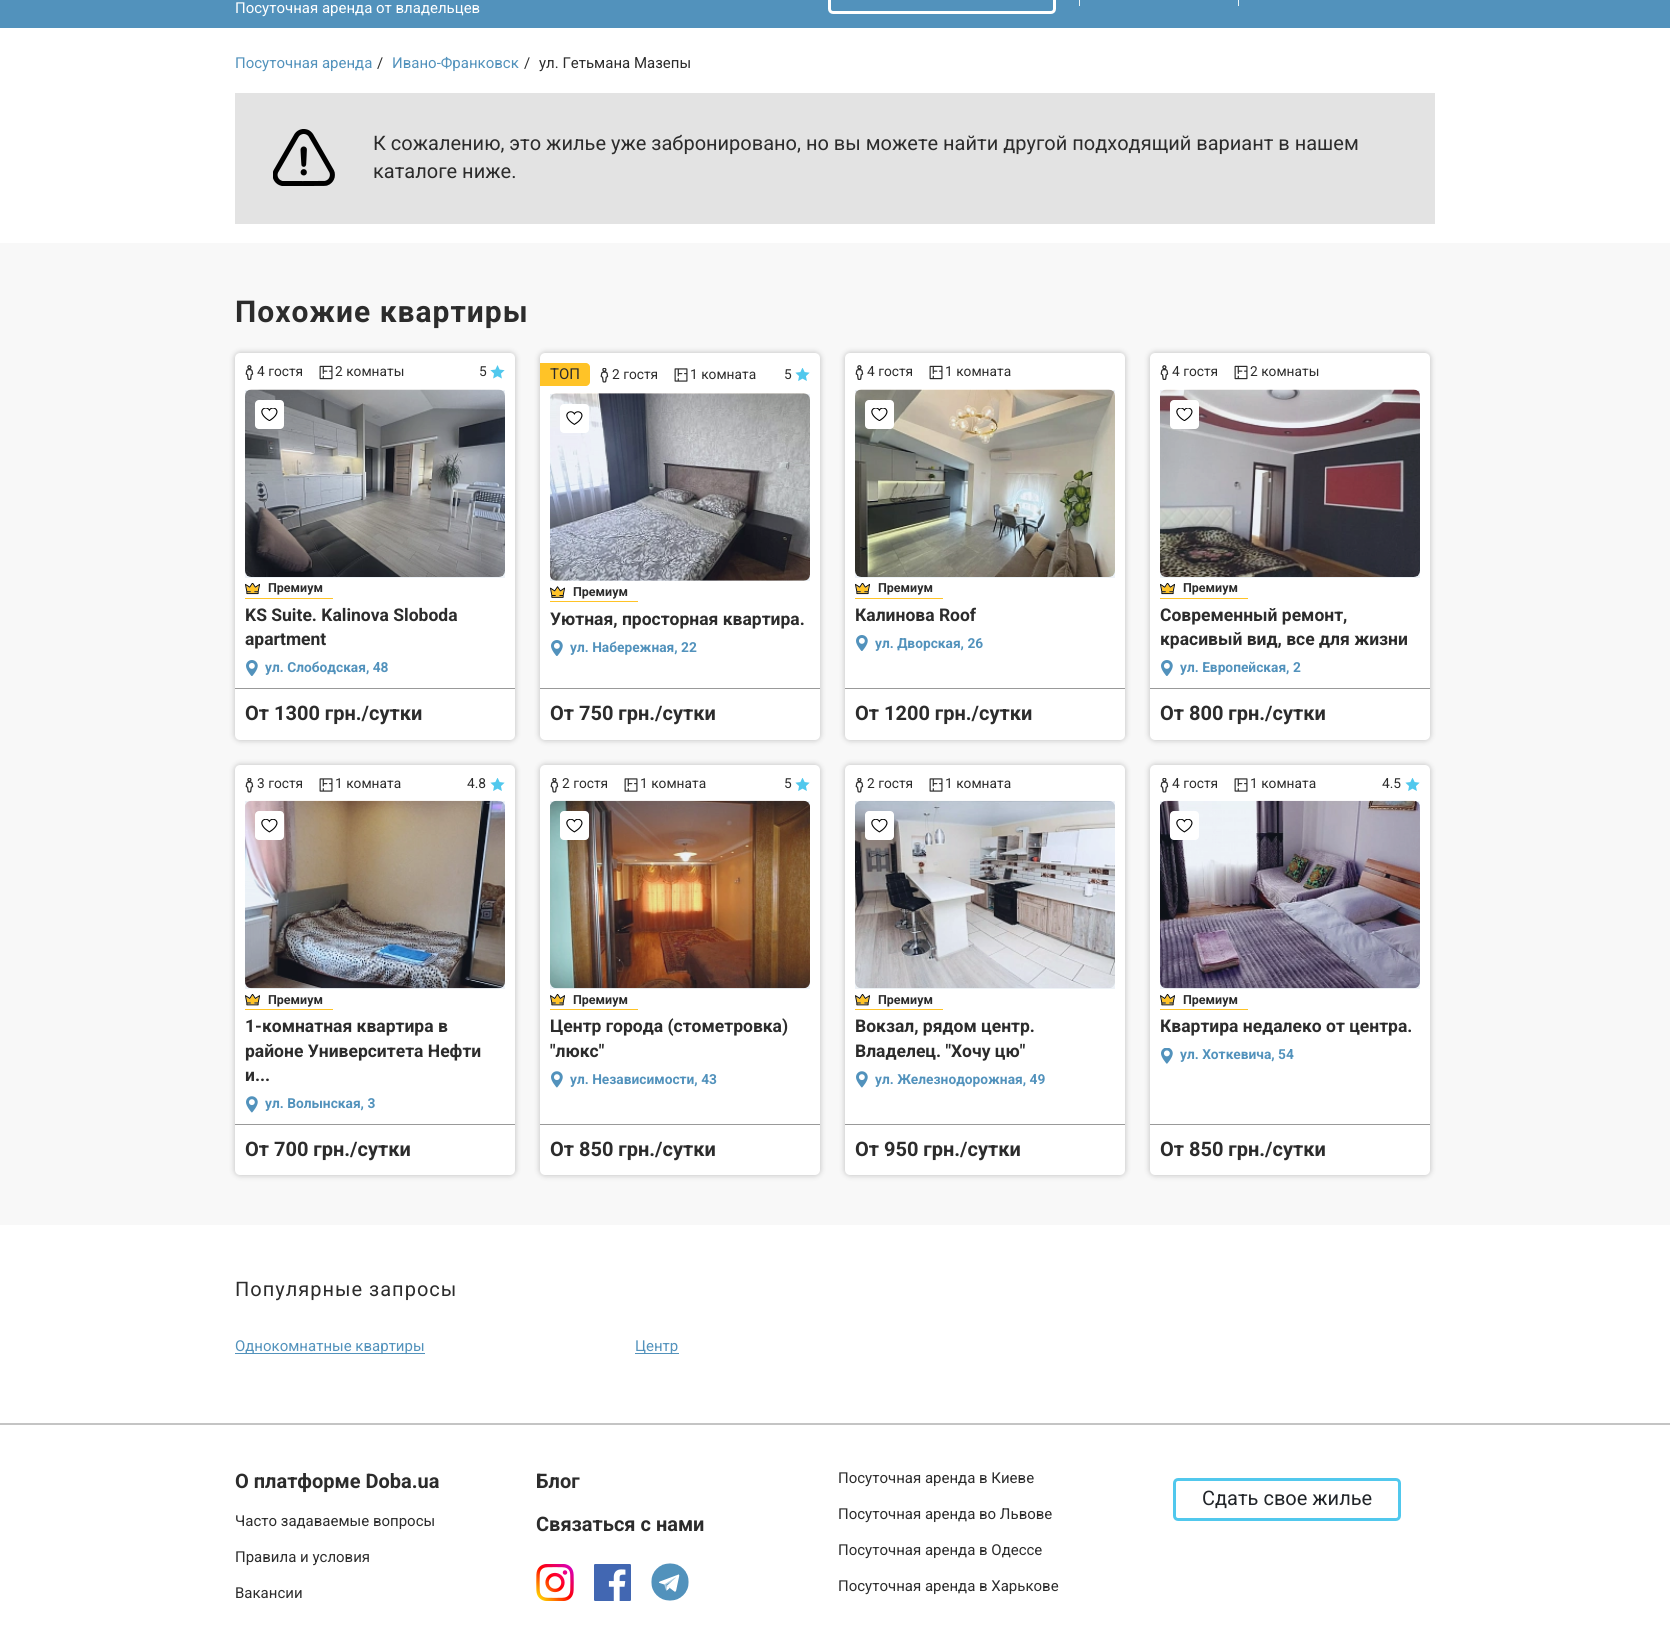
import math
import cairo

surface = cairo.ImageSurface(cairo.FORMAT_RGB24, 1670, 1628)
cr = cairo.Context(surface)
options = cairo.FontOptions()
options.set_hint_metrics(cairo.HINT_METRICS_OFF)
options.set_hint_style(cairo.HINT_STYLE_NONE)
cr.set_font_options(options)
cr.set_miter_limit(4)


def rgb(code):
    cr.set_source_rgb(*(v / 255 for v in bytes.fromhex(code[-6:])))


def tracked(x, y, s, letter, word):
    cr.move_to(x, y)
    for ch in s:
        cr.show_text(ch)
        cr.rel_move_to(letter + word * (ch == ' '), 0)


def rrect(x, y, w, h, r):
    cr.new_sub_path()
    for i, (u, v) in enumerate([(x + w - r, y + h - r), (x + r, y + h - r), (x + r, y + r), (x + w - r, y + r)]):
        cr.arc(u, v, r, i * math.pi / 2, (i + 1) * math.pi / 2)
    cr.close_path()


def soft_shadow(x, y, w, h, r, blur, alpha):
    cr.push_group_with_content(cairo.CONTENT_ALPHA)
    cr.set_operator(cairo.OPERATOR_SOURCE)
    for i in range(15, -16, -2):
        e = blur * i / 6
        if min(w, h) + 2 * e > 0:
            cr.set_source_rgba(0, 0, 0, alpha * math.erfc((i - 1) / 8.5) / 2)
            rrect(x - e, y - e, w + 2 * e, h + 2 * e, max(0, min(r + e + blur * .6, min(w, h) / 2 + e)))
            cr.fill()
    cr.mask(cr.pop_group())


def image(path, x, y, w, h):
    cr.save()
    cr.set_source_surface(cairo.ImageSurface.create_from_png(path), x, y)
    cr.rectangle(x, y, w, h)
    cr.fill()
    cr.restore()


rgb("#ffffff")
cr.paint()
rgb("#5292bc")
cr.rectangle(0, 0, 1670, 28)
cr.fill()
rrect(829.5, -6.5, 225, 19, 3.5)
rgb("#ffffff")
cr.set_line_width(3)
cr.stroke()
for x, y, w, h, color in [
    (1079, 0, 1, 6, "#eaf4f6"),
    (1238, 0, 1, 6, "#eaf4f6"),
    (235, 93, 1200, 131, "#e3e3e3"),
]:
    rgb(color)
    cr.rectangle(x, y, w, h)
    cr.fill()
image("img/1.png", 273, 129, 62, 57)
rgb("#f8f8f8")
cr.rectangle(0, 243, 1670, 982)
cr.fill()
rgb("#000000")
soft_shadow(235, 353, 280, 387, 5, 3, 0.25)
rgb("#ffffff")
rrect(235, 353, 280, 387, 5)
cr.fill()
rgb("#eef3f8")
cr.rectangle(245, 390, 260, 188)
cr.fill()
image("img/2.png", 245, 365, 9, 15)
image("img/3.png", 319, 365, 14, 15)
image("img/4.png", 490, 365, 15, 14)
image("img/5.png", 245, 389, 260, 188)
rgb("#ffffff")
rrect(255, 400, 29, 29, 4)
cr.fill()
image("img/6.png", 261, 408, 17, 13)
image("img/7.png", 245, 583, 15, 12)
rgb("#ffc327")
cr.rectangle(245, 598, 88, 1)
cr.fill()
image("img/8.png", 246, 660, 12, 16)
rgb("#999999")
cr.rectangle(235, 688, 280, 1)
cr.fill()
rgb("#000000")
soft_shadow(540, 353, 280, 387, 5, 3, 0.25)
rgb("#ffffff")
rrect(540, 353, 280, 387, 5)
cr.fill()
rgb("#eef3f8")
cr.rectangle(550, 394, 260, 187)
cr.fill()
rgb("#ffc327")
cr.new_path()
cr.move_to(540, 363)
cr.line_to(586, 363)
cr.curve_to(588, 363, 590, 365, 590, 367)
cr.line_to(590, 382)
cr.curve_to(590, 384, 588, 386, 586, 386)
cr.line_to(540, 386)
cr.close_path()
cr.fill()
image("img/9.png", 600, 368, 9, 15)
image("img/10.png", 674, 368, 14, 14)
image("img/11.png", 795, 368, 15, 13)
image("img/12.png", 550, 393, 260, 188)
rgb("#ffffff")
rrect(560, 404, 29, 29, 4)
cr.fill()
image("img/13.png", 566, 411, 17, 14)
image("img/14.png", 550, 586, 15, 12)
rgb("#ffc327")
cr.rectangle(550, 601, 88, 1)
cr.fill()
image("img/8.png", 551, 640, 12, 16)
rgb("#999999")
cr.rectangle(540, 688, 280, 1)
cr.fill()
rgb("#000000")
soft_shadow(845, 353, 280, 387, 5, 3, 0.25)
rgb("#ffffff")
rrect(845, 353, 280, 387, 5)
cr.fill()
rgb("#eef3f8")
cr.rectangle(855, 390, 260, 188)
cr.fill()
image("img/2.png", 855, 365, 9, 15)
image("img/3.png", 929, 365, 14, 15)
image("img/15.png", 855, 389, 260, 188)
rgb("#ffffff")
rrect(865, 400, 29, 29, 4)
cr.fill()
image("img/6.png", 871, 408, 17, 13)
image("img/7.png", 855, 583, 15, 12)
rgb("#ffc327")
cr.rectangle(855, 598, 88, 1)
cr.fill()
image("img/8.png", 856, 635, 12, 16)
rgb("#999999")
cr.rectangle(845, 688, 280, 1)
cr.fill()
rgb("#000000")
soft_shadow(1150, 353, 280, 387, 5, 3, 0.25)
rgb("#ffffff")
rrect(1150, 353, 280, 387, 5)
cr.fill()
rgb("#eef3f8")
cr.rectangle(1160, 390, 260, 188)
cr.fill()
image("img/2.png", 1160, 365, 9, 15)
image("img/3.png", 1234, 365, 14, 15)
image("img/16.png", 1160, 389, 260, 188)
rgb("#ffffff")
rrect(1170, 400, 29, 29, 4)
cr.fill()
image("img/6.png", 1176, 408, 17, 13)
image("img/7.png", 1160, 583, 15, 12)
rgb("#ffc327")
cr.rectangle(1160, 598, 88, 1)
cr.fill()
image("img/8.png", 1161, 660, 12, 16)
rgb("#999999")
cr.rectangle(1150, 688, 280, 1)
cr.fill()
rgb("#000000")
soft_shadow(235, 765, 280, 410, 5, 3, 0.25)
rgb("#ffffff")
rrect(235, 765, 280, 410, 5)
cr.fill()
rgb("#eef3f8")
cr.rectangle(245, 801, 260, 188)
cr.fill()
image("img/9.png", 245, 778, 9, 15)
image("img/10.png", 319, 778, 14, 14)
image("img/11.png", 490, 778, 15, 13)
image("img/17.png", 245, 800, 260, 189)
rgb("#ffffff")
rrect(255, 811, 29, 29, 4)
cr.fill()
image("img/18.png", 261, 819, 17, 14)
image("img/19.png", 245, 994, 15, 12)
rgb("#ffc327")
cr.rectangle(245, 1009, 88, 1)
cr.fill()
image("img/20.png", 246, 1096, 12, 17)
rgb("#999999")
cr.rectangle(235, 1124, 280, 1)
cr.fill()
rgb("#000000")
soft_shadow(540, 765, 280, 410, 5, 3, 0.25)
rgb("#ffffff")
rrect(540, 765, 280, 410, 5)
cr.fill()
rgb("#eef3f8")
cr.rectangle(550, 801, 260, 188)
cr.fill()
image("img/9.png", 550, 778, 9, 15)
image("img/10.png", 624, 778, 14, 14)
image("img/11.png", 795, 778, 15, 13)
image("img/21.png", 550, 800, 260, 189)
rgb("#ffffff")
rrect(560, 811, 29, 29, 4)
cr.fill()
image("img/18.png", 566, 819, 17, 14)
image("img/19.png", 550, 994, 15, 12)
rgb("#ffc327")
cr.rectangle(550, 1009, 88, 1)
cr.fill()
image("img/20.png", 551, 1071, 12, 17)
rgb("#999999")
cr.rectangle(540, 1124, 280, 1)
cr.fill()
rgb("#000000")
soft_shadow(845, 765, 280, 410, 5, 3, 0.25)
rgb("#ffffff")
rrect(845, 765, 280, 410, 5)
cr.fill()
rgb("#eef3f8")
cr.rectangle(855, 801, 260, 188)
cr.fill()
image("img/9.png", 855, 778, 9, 15)
image("img/10.png", 929, 778, 14, 14)
image("img/22.png", 855, 800, 260, 189)
rgb("#ffffff")
rrect(865, 811, 29, 29, 4)
cr.fill()
image("img/18.png", 871, 819, 17, 14)
image("img/19.png", 855, 994, 15, 12)
rgb("#ffc327")
cr.rectangle(855, 1009, 88, 1)
cr.fill()
image("img/20.png", 856, 1071, 12, 17)
rgb("#999999")
cr.rectangle(845, 1124, 280, 1)
cr.fill()
rgb("#000000")
soft_shadow(1150, 765, 280, 410, 5, 3, 0.25)
rgb("#ffffff")
rrect(1150, 765, 280, 410, 5)
cr.fill()
rgb("#eef3f8")
cr.rectangle(1160, 801, 260, 188)
cr.fill()
image("img/9.png", 1160, 778, 9, 15)
image("img/10.png", 1234, 778, 14, 14)
image("img/11.png", 1405, 778, 15, 13)
image("img/23.png", 1160, 800, 260, 189)
rgb("#ffffff")
rrect(1170, 811, 29, 29, 4)
cr.fill()
image("img/18.png", 1176, 819, 17, 14)
image("img/19.png", 1160, 994, 15, 12)
rgb("#ffc327")
cr.rectangle(1160, 1009, 88, 1)
cr.fill()
image("img/24.png", 1161, 1048, 12, 16)
for x, y, w, h, color in [
    (1150, 1124, 280, 1, "#999999"),
    (235, 1353, 190, 1, "#5292bc"),
    (635, 1353, 44, 1, "#5292bc"),
    (0, 1423, 1670, 2, "#c4c4c4"),
]:
    rgb(color)
    cr.rectangle(x, y, w, h)
    cr.fill()
image("img/25.png", 536, 1564, 38, 37)
image("img/26.png", 594, 1564, 37, 37)
image("img/27.png", 651, 1563, 38, 38)
rrect(1174.5, 1479.5, 225, 40, 3.5)
rgb("#51c8ed")
cr.stroke()
cr.select_font_face("Roboto")
cr.set_font_size(15)
rgb("#ffffff")
cr.move_to(235, 13)
cr.show_text("Посуточная аренда от владельцев")
rgb("#5292bc")
cr.move_to(235, 68)
cr.show_text("Посуточная аренда")
rgb("#2c2c2c")
cr.move_to(377, 68)
cr.show_text("/")
rgb("#5292bc")
cr.move_to(392, 68)
cr.show_text("Ивано-Франковск")
rgb("#2c2c2c")
cr.move_to(524, 68)
cr.show_text("/")
cr.move_to(539, 68)
cr.show_text("ул. Гетьмана Мазепы")
cr.set_font_size(20)
cr.move_to(373, 150)
cr.show_text("К сожалению, это жилье уже забронировано, но вы можете найти другой подходящий вариант в нашем")
cr.move_to(373, 178)
cr.show_text("каталоге ниже.")
cr.select_font_face("Roboto", cairo.FONT_SLANT_NORMAL, cairo.FONT_WEIGHT_BOLD)
cr.set_font_size(30)
tracked(235, 322, "Похожие квартиры", 1, 0)
cr.select_font_face("Roboto")
cr.set_font_size(13.75)
for x, y, s in [
    (257, 376, "4 гостя"),
    (335, 376, "2 комнаты"),
    (479, 376, "5"),
]:
    cr.move_to(x, y)
    cr.show_text(s)
cr.select_font_face("Roboto", cairo.FONT_SLANT_NORMAL, cairo.FONT_WEIGHT_BOLD)
cr.set_font_size(12.5)
cr.move_to(268, 592)
cr.show_text("Премиум")
cr.set_font_size(17.5)
cr.move_to(245, 621)
cr.show_text("KS Suite. Kalinova Sloboda")
cr.move_to(245, 645)
cr.show_text("apartment")
cr.set_font_size(13.75)
rgb("#5292bc")
cr.move_to(265, 672)
cr.show_text("ул. Слободская, 48")
cr.set_font_size(20)
rgb("#2c2c2c")
cr.move_to(245, 720)
cr.show_text("От 1300 грн./сутки")
cr.select_font_face("Roboto")
cr.set_font_size(15)
cr.move_to(550, 379)
cr.show_text("ТОП")
cr.set_font_size(13.75)
for x, y, s in [
    (612, 379, "2 гостя"),
    (690, 379, "1 комната"),
    (784, 379, "5"),
]:
    cr.move_to(x, y)
    cr.show_text(s)
cr.select_font_face("Roboto", cairo.FONT_SLANT_NORMAL, cairo.FONT_WEIGHT_BOLD)
cr.set_font_size(12.5)
cr.move_to(573, 596)
cr.show_text("Премиум")
cr.set_font_size(17.5)
cr.move_to(550, 625)
cr.show_text("Уютная, просторная квартира.")
cr.set_font_size(13.75)
rgb("#5292bc")
cr.move_to(570, 652)
cr.show_text("ул. Набережная, 22")
cr.set_font_size(20)
rgb("#2c2c2c")
cr.move_to(550, 720)
cr.show_text("От 750 грн./сутки")
cr.select_font_face("Roboto")
cr.set_font_size(13.75)
cr.move_to(867, 376)
cr.show_text("4 гостя")
cr.move_to(945, 376)
cr.show_text("1 комната")
cr.select_font_face("Roboto", cairo.FONT_SLANT_NORMAL, cairo.FONT_WEIGHT_BOLD)
cr.set_font_size(12.5)
cr.move_to(878, 592)
cr.show_text("Премиум")
cr.set_font_size(17.5)
cr.move_to(855, 621)
cr.show_text("Калинова Roof")
cr.set_font_size(13.75)
rgb("#5292bc")
cr.move_to(875, 648)
cr.show_text("ул. Дворская, 26")
cr.set_font_size(20)
rgb("#2c2c2c")
cr.move_to(855, 720)
cr.show_text("От 1200 грн./сутки")
cr.select_font_face("Roboto")
cr.set_font_size(13.75)
cr.move_to(1172, 376)
cr.show_text("4 гостя")
cr.move_to(1250, 376)
cr.show_text("2 комнаты")
cr.select_font_face("Roboto", cairo.FONT_SLANT_NORMAL, cairo.FONT_WEIGHT_BOLD)
cr.set_font_size(12.5)
cr.move_to(1183, 592)
cr.show_text("Премиум")
cr.set_font_size(17.5)
cr.move_to(1160, 621)
cr.show_text("Современный ремонт,")
cr.move_to(1160, 645)
cr.show_text("красивый вид, все для жизни")
cr.set_font_size(13.75)
rgb("#5292bc")
cr.move_to(1180, 672)
cr.show_text("ул. Европейская, 2")
cr.set_font_size(20)
rgb("#2c2c2c")
cr.move_to(1160, 720)
cr.show_text("От 800 грн./сутки")
cr.select_font_face("Roboto")
cr.set_font_size(13.75)
for x, y, s in [
    (257, 788, "3 гостя"),
    (335, 788, "1 комната"),
    (467, 788, "4.8"),
]:
    cr.move_to(x, y)
    cr.show_text(s)
cr.select_font_face("Roboto", cairo.FONT_SLANT_NORMAL, cairo.FONT_WEIGHT_BOLD)
cr.set_font_size(12.5)
cr.move_to(268, 1004)
cr.show_text("Премиум")
cr.set_font_size(17.5)
for x, y, s in [
    (245, 1032, "1-комнатная квартира в"),
    (245, 1057, "районе Университета Нефти"),
    (245, 1081, "и..."),
]:
    cr.move_to(x, y)
    cr.show_text(s)
cr.set_font_size(13.75)
rgb("#5292bc")
cr.move_to(265, 1108)
cr.show_text("ул. Волынская, 3")
cr.set_font_size(20)
rgb("#2c2c2c")
cr.move_to(245, 1156)
cr.show_text("От 700 грн./сутки")
cr.select_font_face("Roboto")
cr.set_font_size(13.75)
for x, y, s in [
    (562, 788, "2 гостя"),
    (640, 788, "1 комната"),
    (784, 788, "5"),
]:
    cr.move_to(x, y)
    cr.show_text(s)
cr.select_font_face("Roboto", cairo.FONT_SLANT_NORMAL, cairo.FONT_WEIGHT_BOLD)
cr.set_font_size(12.5)
cr.move_to(573, 1004)
cr.show_text("Премиум")
cr.set_font_size(17.5)
cr.move_to(550, 1032)
cr.show_text("Центр города (стометровка)")
cr.move_to(550, 1057)
cr.show_text("\"люкс\"")
cr.set_font_size(13.75)
rgb("#5292bc")
cr.move_to(570, 1084)
cr.show_text("ул. Независимости, 43")
cr.set_font_size(20)
rgb("#2c2c2c")
cr.move_to(550, 1156)
cr.show_text("От 850 грн./сутки")
cr.select_font_face("Roboto")
cr.set_font_size(13.75)
cr.move_to(867, 788)
cr.show_text("2 гостя")
cr.move_to(945, 788)
cr.show_text("1 комната")
cr.select_font_face("Roboto", cairo.FONT_SLANT_NORMAL, cairo.FONT_WEIGHT_BOLD)
cr.set_font_size(12.5)
cr.move_to(878, 1004)
cr.show_text("Премиум")
cr.set_font_size(17.5)
cr.move_to(855, 1032)
cr.show_text("Вокзал, рядом центр.")
cr.move_to(855, 1057)
cr.show_text("Владелец. \"Хочу цю\"")
cr.set_font_size(13.75)
rgb("#5292bc")
cr.move_to(875, 1084)
cr.show_text("ул. Железнодорожная, 49")
cr.set_font_size(20)
rgb("#2c2c2c")
cr.move_to(855, 1156)
cr.show_text("От 950 грн./сутки")
cr.select_font_face("Roboto")
cr.set_font_size(13.75)
for x, y, s in [
    (1172, 788, "4 гостя"),
    (1250, 788, "1 комната"),
    (1382, 788, "4.5"),
]:
    cr.move_to(x, y)
    cr.show_text(s)
cr.select_font_face("Roboto", cairo.FONT_SLANT_NORMAL, cairo.FONT_WEIGHT_BOLD)
cr.set_font_size(12.5)
cr.move_to(1183, 1004)
cr.show_text("Премиум")
cr.set_font_size(17.5)
cr.move_to(1160, 1032)
cr.show_text("Квартира недалеко от центра.")
cr.set_font_size(13.75)
rgb("#5292bc")
cr.move_to(1180, 1059)
cr.show_text("ул. Хоткевича, 54")
cr.set_font_size(20)
rgb("#2c2c2c")
cr.move_to(1160, 1156)
cr.show_text("От 850 грн./сутки")
cr.select_font_face("Roboto")
tracked(235, 1296, "Популярные запросы", 1, 0)
cr.set_font_size(15)
rgb("#5292bc")
cr.move_to(235, 1351)
cr.show_text("Однокомнатные квартиры")
cr.move_to(635, 1351)
cr.show_text("Центр")
cr.select_font_face("Roboto", cairo.FONT_SLANT_NORMAL, cairo.FONT_WEIGHT_BOLD)
cr.set_font_size(20)
rgb("#2c2c2c")
cr.move_to(235, 1488)
cr.show_text("О платформе Doba.ua")
cr.select_font_face("Roboto")
cr.set_font_size(15)
for x, y, s in [
    (235, 1526, "Часто задаваемые вопросы"),
    (235, 1562, "Правила и условия"),
    (235, 1598, "Вакансии"),
]:
    cr.move_to(x, y)
    cr.show_text(s)
cr.select_font_face("Roboto", cairo.FONT_SLANT_NORMAL, cairo.FONT_WEIGHT_BOLD)
cr.set_font_size(20)
cr.move_to(536, 1488)
cr.show_text("Блог")
cr.move_to(536, 1531)
cr.show_text("Связаться с нами")
cr.select_font_face("Roboto")
cr.set_font_size(15)
for x, y, s in [
    (838, 1483, "Посуточная аренда в Киеве"),
    (838, 1519, "Посуточная аренда во Львове"),
    (838, 1555, "Посуточная аренда в Одессе"),
    (838, 1591, "Посуточная аренда в Харькове"),
]:
    cr.move_to(x, y)
    cr.show_text(s)
cr.set_font_size(20)
rgb("#212529")
cr.move_to(1202, 1505)
cr.show_text("Сдать свое жилье")
surface.write_to_png("page.png")
